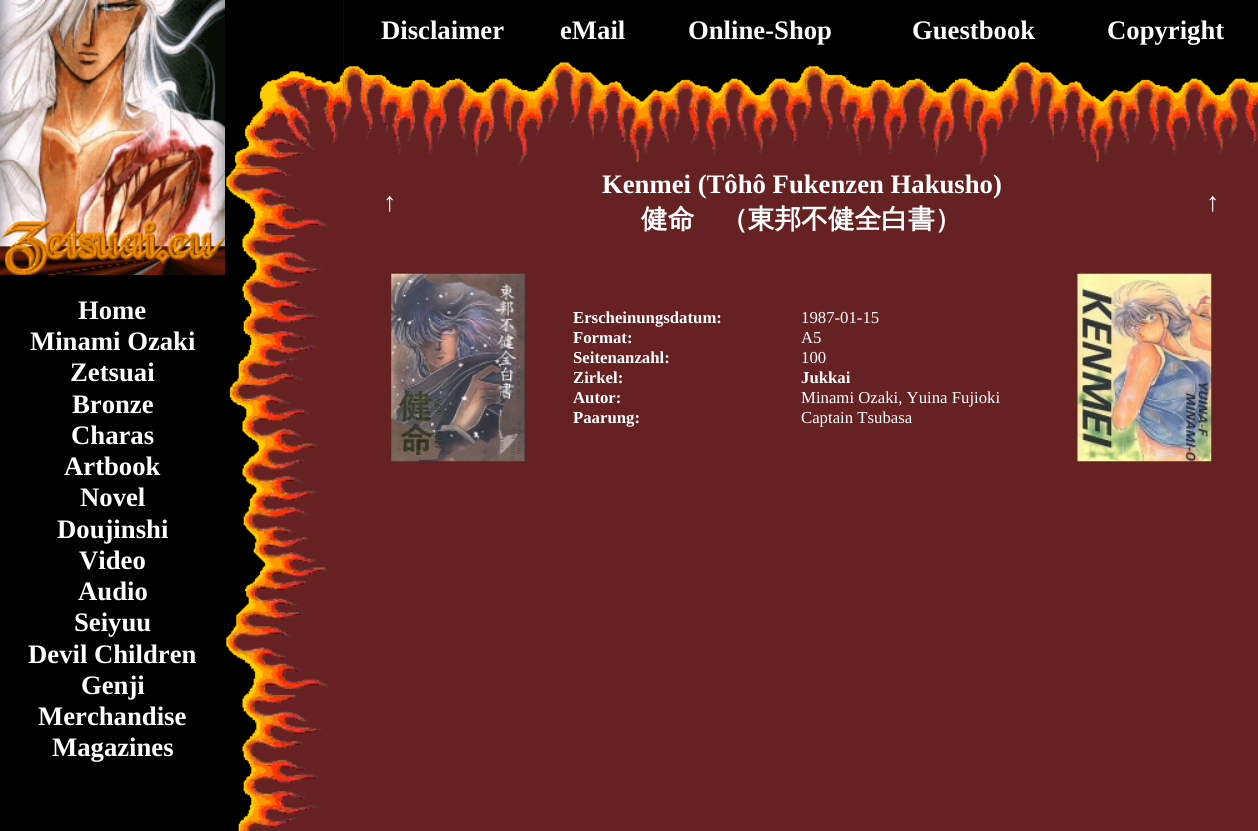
import math
import cairo

surface = cairo.ImageSurface(cairo.FORMAT_RGB24, 1258, 831)
cr = cairo.Context(surface)
options = cairo.FontOptions()
options.set_hint_metrics(cairo.HINT_METRICS_OFF)
options.set_hint_style(cairo.HINT_STYLE_NONE)
cr.set_font_options(options)
cr.set_miter_limit(4)


def rgb(code):
    cr.set_source_rgb(*(v / 255 for v in bytes.fromhex(code[-6:])))


def image(path, x, y, w, h):
    cr.save()
    cr.set_source_surface(cairo.ImageSurface.create_from_png(path), x, y)
    cr.rectangle(x, y, w, h)
    cr.fill()
    cr.restore()


rgb("#662222")
cr.paint()
image("img/1.png", 225, 0, 119, 169)
image("img/2.png", 225, 168, 104, 663)
rgb("#000000")
cr.rectangle(344, 0, 914, 63)
cr.fill()
image("img/3.png", 343, 62, 915, 103)
image("img/4.png", 391, 273, 134, 189)
image("img/5.png", 1077, 273, 135, 189)
cr.rectangle(0, 275, 225, 556)
cr.fill()
image("img/6.png", 0, 0, 225, 275)
cr.select_font_face("Liberation Serif", cairo.FONT_SLANT_NORMAL, cairo.FONT_WEIGHT_BOLD)
cr.set_font_size(26.7)
rgb("#ffffff")
for x, y, s in [
    (381, 39, "Disclaimer"),
    (560, 39, "eMail"),
    (688, 39, "Online-Shop"),
    (912, 39, "Guestbook"),
    (1107, 39, "Copyright"),
    (383, 211, "↑"),
    (602, 193, "Kenmei (Tôhô Fukenzen Hakusho)"),
]:
    cr.move_to(x, y)
    cr.show_text(s)
cr.select_font_face("WenQuanYi Zen Hei", cairo.FONT_SLANT_NORMAL, cairo.FONT_WEIGHT_BOLD)
cr.move_to(641, 228)
cr.show_text("健命　（東邦不健全白書）")
cr.select_font_face("Liberation Serif", cairo.FONT_SLANT_NORMAL, cairo.FONT_WEIGHT_BOLD)
cr.move_to(1206, 211)
cr.show_text("↑")
cr.set_font_size(16.75)
for x, y, s in [
    (573, 323, "Erscheinungsdatum:"),
    (573, 343, "Format:"),
    (573, 363, "Seitenanzahl:"),
    (573, 383, "Zirkel:"),
    (573, 403, "Autor:"),
    (573, 423, "Paarung:"),
]:
    cr.move_to(x, y)
    cr.show_text(s)
cr.select_font_face("Liberation Serif")
for x, y, s in [
    (801, 323, "1987-01-15"),
    (801, 343, "A5"),
    (801, 363, "100"),
]:
    cr.move_to(x, y)
    cr.show_text(s)
cr.select_font_face("Liberation Serif", cairo.FONT_SLANT_NORMAL, cairo.FONT_WEIGHT_BOLD)
cr.move_to(801, 383)
cr.show_text("Jukkai")
cr.select_font_face("Liberation Serif")
cr.move_to(801, 403)
cr.show_text("Minami Ozaki, Yuina Fujioki")
cr.move_to(801, 423)
cr.show_text("Captain Tsubasa")
cr.select_font_face("Liberation Serif", cairo.FONT_SLANT_NORMAL, cairo.FONT_WEIGHT_BOLD)
cr.set_font_size(26.7)
for x, y, s in [
    (78, 319, "Home"),
    (30, 350, "Minami Ozaki"),
    (70, 381, "Zetsuai"),
    (72, 413, "Bronze"),
    (71, 444, "Charas"),
    (64, 475, "Artbook"),
    (80, 506, "Novel"),
    (57, 538, "Doujinshi"),
    (79, 569, "Video"),
    (78, 600, "Audio"),
    (74, 631, "Seiyuu"),
    (28, 663, "Devil Children"),
    (81, 694, "Genji"),
    (38, 725, "Merchandise"),
    (52, 756, "Magazines"),
]:
    cr.move_to(x, y)
    cr.show_text(s)
surface.write_to_png("page.png")
